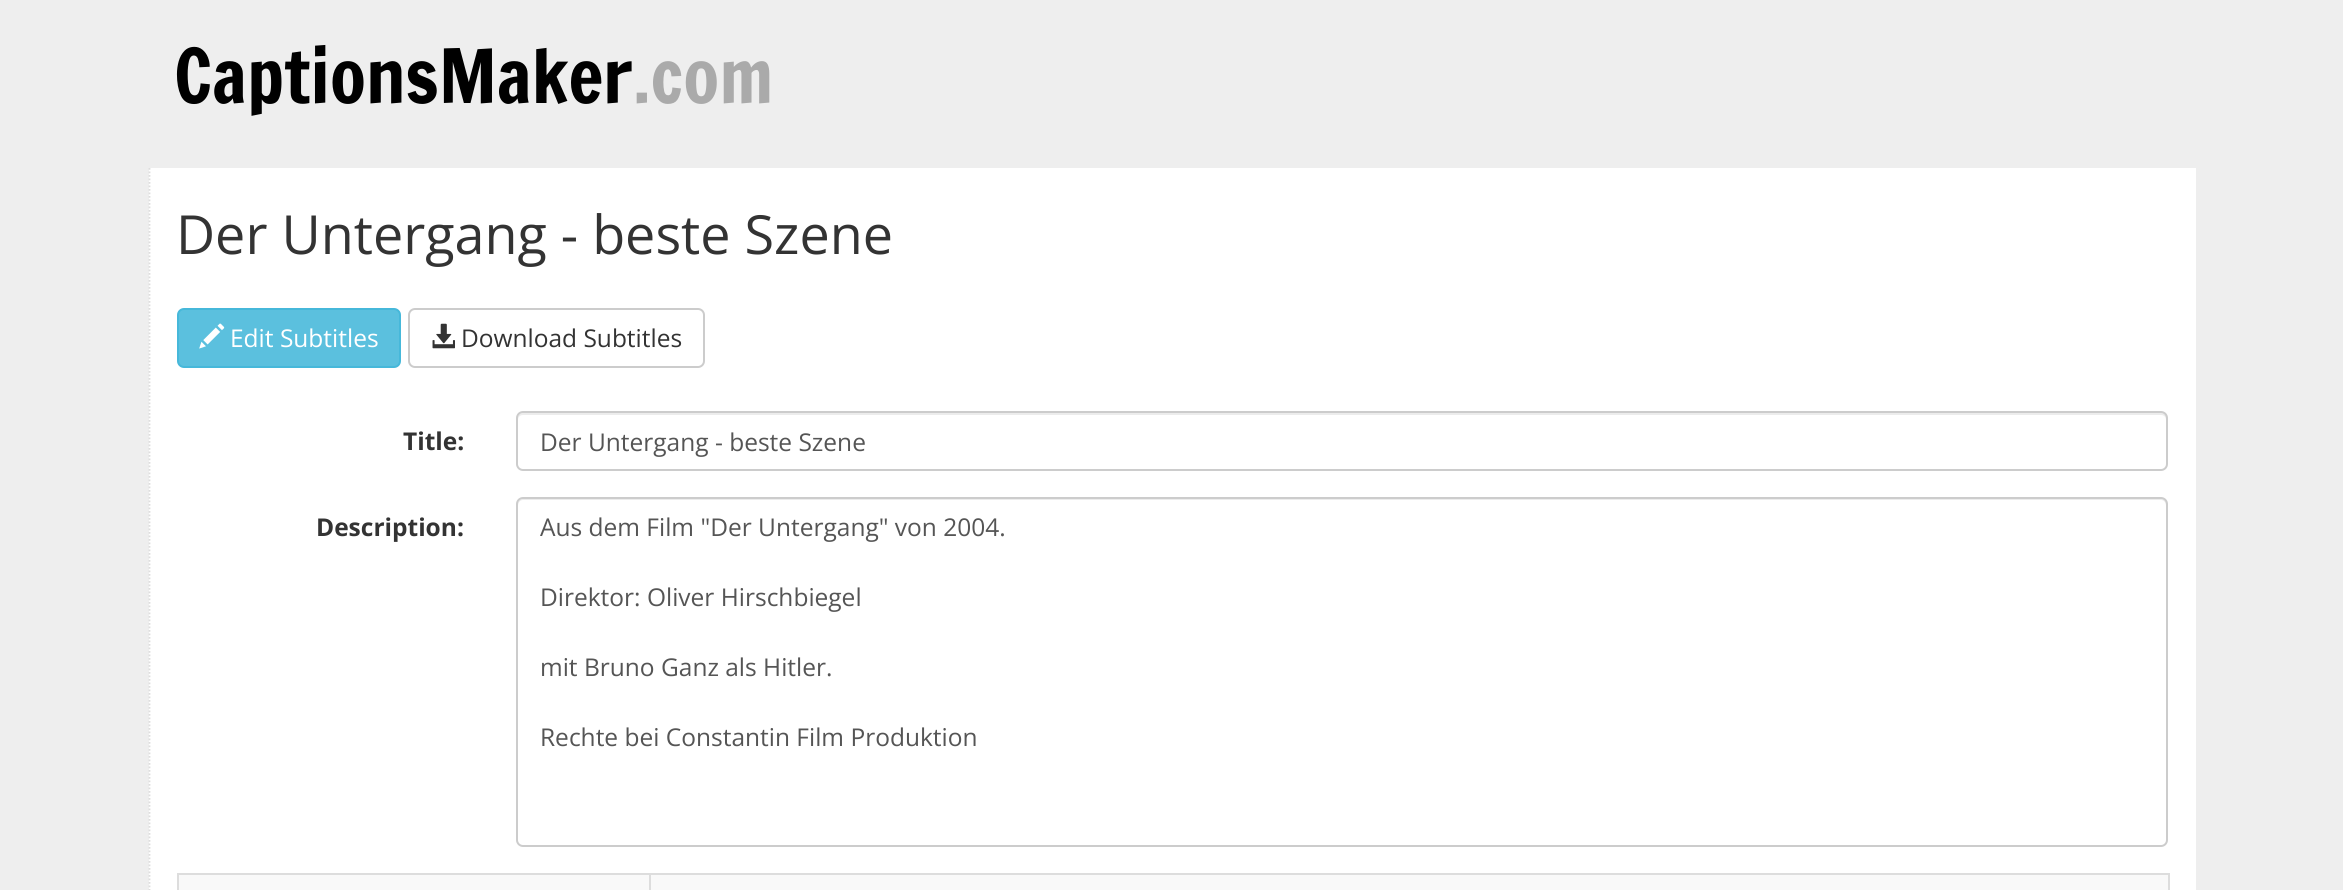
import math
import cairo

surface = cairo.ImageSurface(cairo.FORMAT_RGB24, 2343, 890)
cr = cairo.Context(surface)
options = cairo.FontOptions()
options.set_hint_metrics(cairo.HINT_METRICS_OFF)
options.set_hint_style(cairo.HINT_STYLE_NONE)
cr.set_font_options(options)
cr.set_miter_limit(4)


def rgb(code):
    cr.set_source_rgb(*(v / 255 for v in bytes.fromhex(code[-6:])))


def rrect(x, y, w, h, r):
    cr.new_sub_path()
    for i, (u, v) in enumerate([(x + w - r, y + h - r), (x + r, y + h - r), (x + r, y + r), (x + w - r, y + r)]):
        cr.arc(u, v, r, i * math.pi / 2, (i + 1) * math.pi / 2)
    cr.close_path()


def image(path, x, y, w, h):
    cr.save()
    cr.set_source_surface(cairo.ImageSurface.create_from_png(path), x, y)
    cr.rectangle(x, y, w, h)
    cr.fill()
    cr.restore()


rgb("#eeeeee")
cr.paint()
rgb("#ffffff")
cr.rectangle(149, 168, 2047, 722)
cr.fill()
cr.new_path()
cr.move_to(149.5, 168)
cr.line_to(149.5, 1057)
rgb("#dddddd")
cr.set_line_width(1.8)
cr.set_dash([1.75, 1.75])
cr.stroke()
rgb("#5bc0de")
rrect(178, 309, 222, 58, 6)
cr.fill_preserve()
rgb("#46b8da")
cr.set_line_width(2)
cr.set_dash([])
cr.stroke()
image("img/1.png", 199, 323, 26, 26)
rrect(409, 309, 295, 58, 6)
rgb("#cccccc")
cr.stroke()
image("img/2.png", 432, 323, 23, 26)
rgb("#ececec")
cr.new_path()
cr.move_to(523, 415)
cr.line_to(2161, 415)
cr.curve_to(2164, 415, 2166, 417, 2166, 420)
cr.line_to(2166, 467)
cr.curve_to(2167, 466, 2167, 465, 2167, 464)
cr.line_to(2167, 418)
cr.curve_to(2167, 415, 2165, 413, 2162, 413)
cr.line_to(523, 413)
cr.curve_to(520, 413, 518, 415, 518, 418)
cr.line_to(518, 420)
cr.curve_to(518, 417, 520, 415, 523, 415)
cr.close_path()
cr.fill()
rrect(517, 412, 1650, 58, 6)
rgb("#cccccc")
cr.stroke()
rgb("#ececec")
cr.new_path()
cr.move_to(523, 500)
cr.line_to(2161, 500)
cr.curve_to(2164, 500, 2166, 503, 2166, 506)
cr.line_to(2166, 843)
cr.curve_to(2167, 842, 2167, 841, 2167, 840)
cr.line_to(2167, 504)
cr.curve_to(2167, 501, 2165, 499, 2162, 499)
cr.line_to(523, 499)
cr.curve_to(520, 499, 518, 501, 518, 504)
cr.line_to(518, 506)
cr.curve_to(518, 503, 520, 500, 523, 500)
cr.close_path()
cr.fill()
rrect(517, 498, 1650, 348, 6)
rgb("#cccccc")
cr.stroke()
for x, y, w, h, color in [
    (177, 873, 1993, 2, "#dddddd"),
    (2168, 873, 2, 17, "#dddddd"),
    (177, 873, 2, 17, "#dddddd"),
    (179, 875, 1989, 15, "#f9f9f9"),
    (649, 873, 2, 17, "#dddddd"),
]:
    rgb(color)
    cr.rectangle(x, y, w, h)
    cr.fill()
cr.select_font_face("Francois One")
cr.set_font_size(73.5)
rgb("#000000")
cr.move_to(174, 103)
cr.show_text("CaptionsMaker")
rgb("#aaaaaa")
cr.move_to(633, 103)
cr.show_text(".com")
cr.select_font_face("Open Sans")
cr.set_font_size(53.9)
rgb("#333333")
cr.move_to(176, 254)
cr.show_text("Der Untergang - beste Szene")
cr.set_font_size(24.5)
rgb("#ffffff")
cr.move_to(230, 347)
cr.show_text("Edit Subtitles")
rgb("#333333")
cr.move_to(461, 347)
cr.show_text("Download Subtitles")
cr.select_font_face("Open Sans", cairo.FONT_SLANT_NORMAL, cairo.FONT_WEIGHT_BOLD)
cr.move_to(403, 450)
cr.show_text("Title:")
cr.select_font_face("Open Sans")
rgb("#555555")
cr.move_to(540, 451)
cr.show_text("Der Untergang - beste Szene")
cr.select_font_face("Open Sans", cairo.FONT_SLANT_NORMAL, cairo.FONT_WEIGHT_BOLD)
rgb("#333333")
cr.move_to(316, 536)
cr.show_text("Description:")
cr.select_font_face("Open Sans")
rgb("#555555")
for x, y, s in [
    (540, 536, "Aus dem Film \"Der Untergang\" von 2004."),
    (540, 606, "Direktor: Oliver Hirschbiegel"),
    (540, 676, "mit Bruno Ganz als Hitler."),
    (540, 746, "Rechte bei Constantin Film Produktion"),
]:
    cr.move_to(x, y)
    cr.show_text(s)
surface.write_to_png("page.png")
